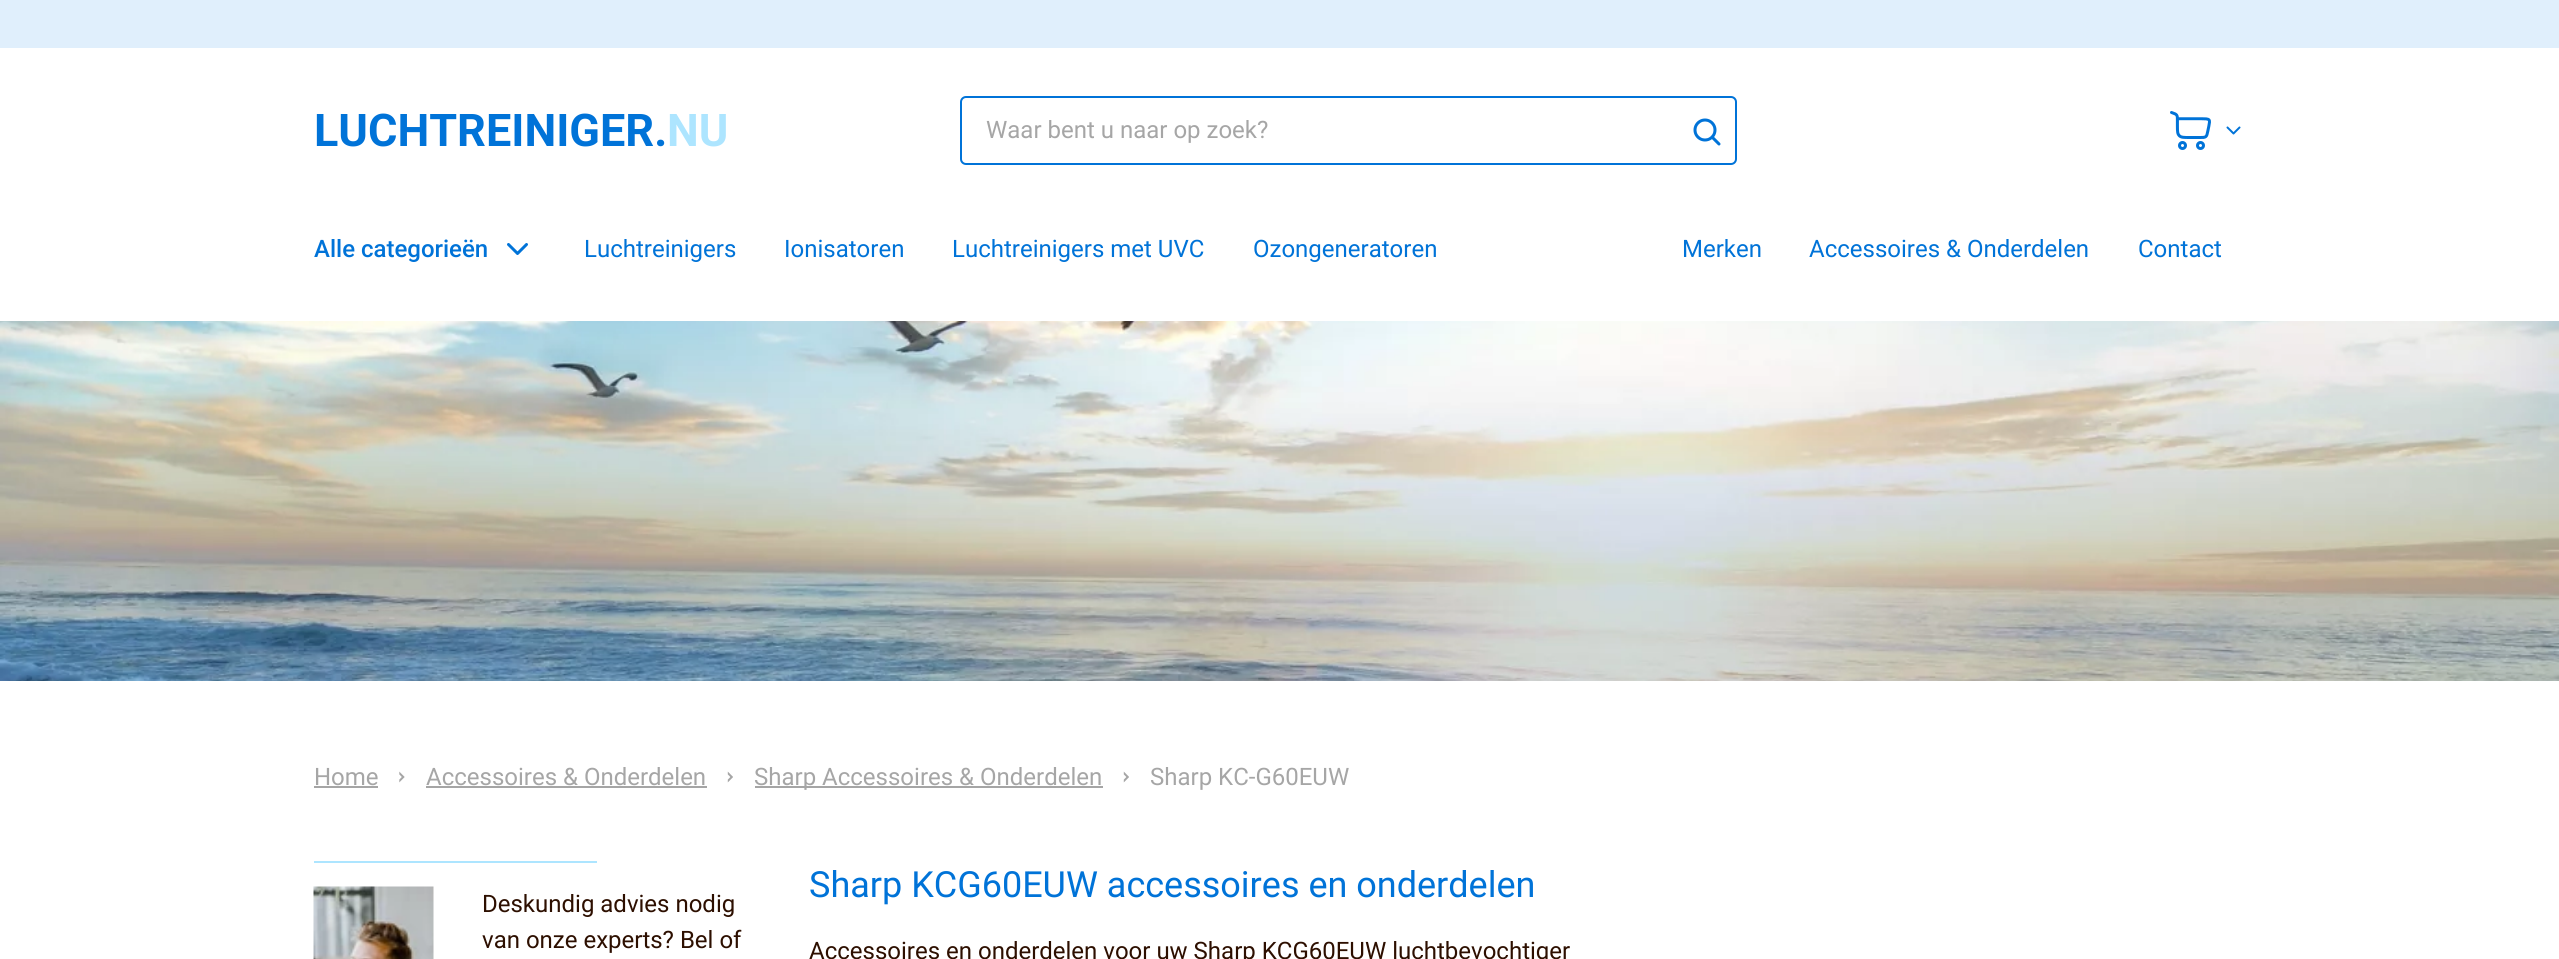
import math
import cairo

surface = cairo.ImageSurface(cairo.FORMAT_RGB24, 2559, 959)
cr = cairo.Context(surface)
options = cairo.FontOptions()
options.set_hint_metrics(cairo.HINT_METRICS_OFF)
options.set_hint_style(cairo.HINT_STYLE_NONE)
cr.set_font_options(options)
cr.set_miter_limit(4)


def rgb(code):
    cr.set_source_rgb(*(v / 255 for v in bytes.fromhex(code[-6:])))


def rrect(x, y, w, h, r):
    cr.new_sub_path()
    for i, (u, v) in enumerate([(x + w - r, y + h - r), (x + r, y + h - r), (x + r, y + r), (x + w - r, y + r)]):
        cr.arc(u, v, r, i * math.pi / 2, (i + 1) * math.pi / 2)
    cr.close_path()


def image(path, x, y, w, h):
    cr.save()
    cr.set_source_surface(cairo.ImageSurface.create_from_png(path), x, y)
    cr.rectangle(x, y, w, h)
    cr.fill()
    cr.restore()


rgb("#ffffff")
cr.paint()
rgb("#e0effc")
cr.rectangle(0, 0, 2559, 48)
cr.fill()
rrect(961, 97, 775, 67, 5)
rgb("#0073d8")
cr.stroke()
image("img/1.png", 1693, 118, 28, 28)
image("img/2.png", 2170, 111, 41, 39)
image("img/3.png", 2226, 126, 15, 9)
image("img/4.png", 507, 243, 21, 12)
image("img/5.png", 0, 321, 2559, 360)
rgb("#a5a5a5")
cr.rectangle(314, 786, 64, 2)
cr.fill()
image("img/6.png", 399, 771, 6, 12)
cr.rectangle(426, 786, 281, 2)
cr.fill()
image("img/7.png", 727, 771, 6, 12)
cr.rectangle(755, 786, 348, 2)
cr.fill()
image("img/7.png", 1123, 771, 6, 12)
rgb("#ade5ff")
cr.rectangle(314, 861, 283, 2)
cr.fill()
image("img/8.png", 313, 886, 121, 73)
cr.select_font_face("Roboto", cairo.FONT_SLANT_NORMAL, cairo.FONT_WEIGHT_BOLD)
cr.set_font_size(45)
rgb("#0073d8")
cr.move_to(314, 146)
cr.show_text("LUCHTREINIGER.")
rgb("#ade5ff")
cr.move_to(667, 146)
cr.show_text("NU")
cr.select_font_face("Roboto")
cr.set_font_size(24)
rgb("#a6a6a6")
cr.move_to(986, 138)
cr.show_text("Waar bent u naar op zoek?")
cr.select_font_face("Roboto Medium")
rgb("#0073d8")
cr.move_to(314, 257)
cr.show_text("Alle categorieën")
cr.select_font_face("Roboto")
for x, y, s in [
    (584, 257, "Luchtreinigers"),
    (784, 257, "Ionisatoren"),
    (952, 257, "Luchtreinigers met UVC"),
    (1253, 257, "Ozongeneratoren"),
    (1682, 257, "Merken"),
    (1809, 257, "Accessoires & Onderdelen"),
    (2138, 257, "Contact"),
]:
    cr.move_to(x, y)
    cr.show_text(s)
rgb("#a6a6a6")
for x, y, s in [
    (314, 785, "Home"),
    (426, 785, "Accessoires & Onderdelen"),
    (754, 785, "Sharp Accessoires & Onderdelen"),
    (1150, 785, "Sharp KC-G60EUW"),
]:
    cr.move_to(x, y)
    cr.show_text(s)
rgb("#2d0f00")
cr.move_to(482, 912)
cr.show_text("Deskundig advies nodig")
cr.move_to(482, 948)
cr.show_text("van onze experts? Bel of")
cr.set_font_size(36)
rgb("#0073d8")
cr.move_to(809, 897)
cr.show_text("Sharp KCG60EUW accessoires en onderdelen")
cr.set_font_size(24)
rgb("#2d0f00")
cr.move_to(809, 959)
cr.show_text("Accessoires en onderdelen voor uw Sharp KCG60EUW luchtbevochtiger")
surface.write_to_png("page.png")
